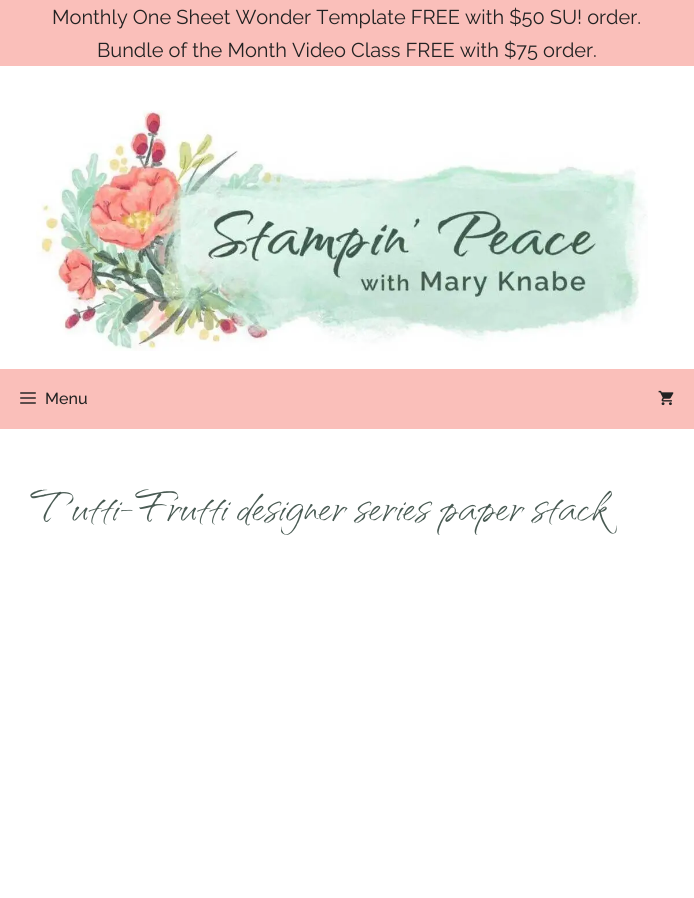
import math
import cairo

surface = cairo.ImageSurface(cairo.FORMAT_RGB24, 694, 898)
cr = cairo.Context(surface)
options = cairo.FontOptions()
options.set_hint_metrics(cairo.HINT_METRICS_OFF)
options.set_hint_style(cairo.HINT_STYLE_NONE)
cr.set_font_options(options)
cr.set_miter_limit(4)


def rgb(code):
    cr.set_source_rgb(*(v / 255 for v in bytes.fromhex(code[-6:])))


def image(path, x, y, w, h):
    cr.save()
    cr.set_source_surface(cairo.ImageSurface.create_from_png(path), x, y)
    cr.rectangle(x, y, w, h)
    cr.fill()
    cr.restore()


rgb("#ffffff")
cr.paint()
rgb("#fabfba")
cr.rectangle(0, 0, 694, 66)
cr.fill()
image("img/1.png", 36, 110, 612, 241)
cr.rectangle(0, 369, 694, 60)
cr.fill()
image("img/2.png", 20, 392, 16, 12)
image("img/3.png", 658, 390, 16, 16)
cr.select_font_face("Raleway")
cr.set_font_size(20)
rgb("#222222")
cr.move_to(52, 24)
cr.show_text("Monthly One Sheet Wonder Template FREE with $50 SU! order.")
cr.move_to(97, 57)
cr.show_text("Bundle of the Month Video Class FREE with $75 order.")
cr.select_font_face("Raleway Medium")
cr.set_font_size(16)
cr.move_to(45, 404)
cr.show_text("Menu")
cr.select_font_face("Qwitcher Grypen")
cr.set_font_size(60)
rgb("#495a53")
cr.move_to(30, 520)
cr.show_text("Tutti-Frutti designer series paper stack")
surface.write_to_png("page.png")
